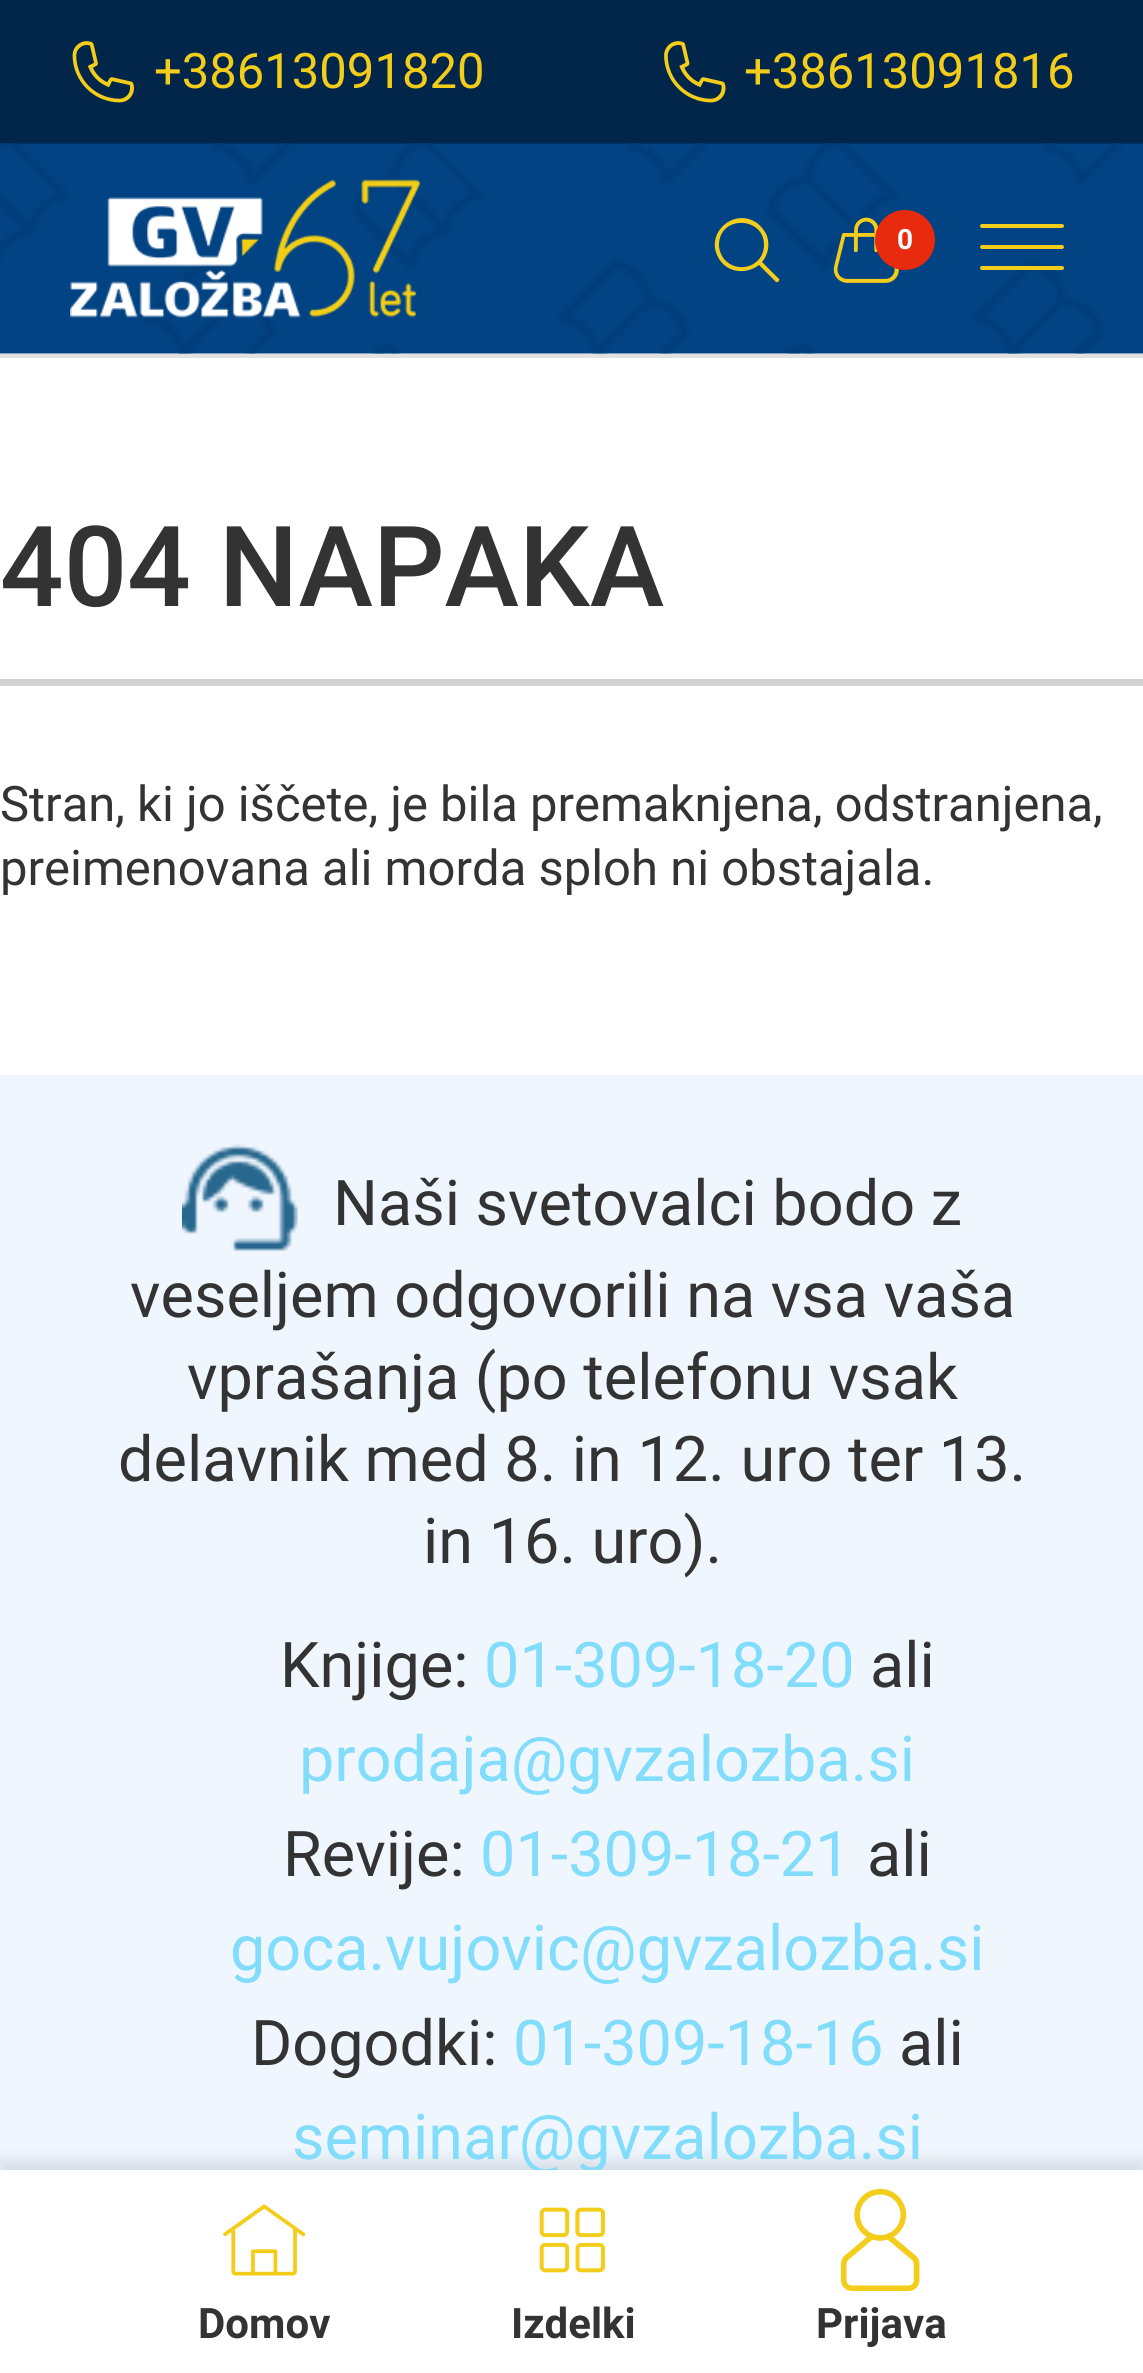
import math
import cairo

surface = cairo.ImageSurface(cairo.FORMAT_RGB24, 1143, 2373)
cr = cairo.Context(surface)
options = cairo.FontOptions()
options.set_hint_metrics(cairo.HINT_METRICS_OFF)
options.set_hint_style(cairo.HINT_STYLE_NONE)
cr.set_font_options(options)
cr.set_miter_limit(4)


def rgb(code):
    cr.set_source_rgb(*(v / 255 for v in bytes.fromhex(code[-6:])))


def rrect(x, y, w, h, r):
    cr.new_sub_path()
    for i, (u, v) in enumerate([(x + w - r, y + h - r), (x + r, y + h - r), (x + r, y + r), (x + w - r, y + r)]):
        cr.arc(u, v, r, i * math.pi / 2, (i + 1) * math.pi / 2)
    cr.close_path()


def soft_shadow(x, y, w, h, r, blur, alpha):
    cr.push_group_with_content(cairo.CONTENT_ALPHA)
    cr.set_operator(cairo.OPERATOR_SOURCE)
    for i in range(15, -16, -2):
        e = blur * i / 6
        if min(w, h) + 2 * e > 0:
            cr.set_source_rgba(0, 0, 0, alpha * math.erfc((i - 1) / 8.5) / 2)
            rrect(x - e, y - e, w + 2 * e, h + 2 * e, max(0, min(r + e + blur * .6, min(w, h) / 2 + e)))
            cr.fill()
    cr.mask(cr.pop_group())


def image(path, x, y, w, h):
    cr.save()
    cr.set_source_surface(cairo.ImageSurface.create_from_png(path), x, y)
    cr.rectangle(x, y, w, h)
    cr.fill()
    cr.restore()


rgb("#ffffff")
cr.paint()
rgb("#e1e1e1")
cr.rectangle(0, 354, 1143, 4)
cr.fill()
rgb("#012649")
cr.rectangle(0, 0, 1143, 144)
cr.fill()
image("img/1.png", 72, 41, 62, 62)
image("img/2.png", 664, 41, 62, 62)
image("img/3.png", 0, 143, 1143, 211)
image("img/4.png", 70, 179, 350, 139)
rgb("#f3cd1a")
cr.new_path()
cr.move_to(779, 279)
cr.line_to(762, 262)
cr.curve_to(768, 255, 770, 245, 767, 236)
cr.curve_to(765, 231, 761, 226, 757, 223)
cr.curve_to(734, 207, 705, 233, 718, 257)
cr.curve_to(726, 273, 746, 275, 759, 265)
cr.line_to(776, 282)
cr.curve_to(778, 283, 780, 280, 779, 279)
cr.close_path()
cr.move_to(764, 245)
cr.curve_to(764, 266, 738, 275, 724, 259)
cr.curve_to(721, 255, 719, 250, 719, 245)
cr.curve_to(719, 215, 764, 216, 764, 245)
cr.close_path()
cr.fill()
image("img/5.png", 833, 217, 66, 66)
rgb("#e82a0f")
cr.arc(905, 240, 30, 0, 2 * math.pi)
cr.fill()
rgb("#f3cd1a")
rrect(980, 224, 84, 4, 2)
cr.fill()
rrect(980, 245, 84, 4, 2)
cr.fill()
rrect(980, 266, 84, 4, 2)
cr.fill()
rgb("#eff6fe")
cr.rectangle(0, 1075, 1143, 1095)
cr.fill()
rgb("#000000")
soft_shadow(0, 2160, 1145, 203, 0, 7, 0.1)
rgb("#d2d2d2")
cr.rectangle(0, 679, 1143, 7)
cr.fill()
image("img/9.png", 182, 1144, 116, 107)
cr.select_font_face("Roboto")
cr.set_font_size(49)
rgb("#f3cd1a")
cr.move_to(154, 88)
cr.show_text("+38613091820")
cr.move_to(744, 88)
cr.show_text("+38613091816")
cr.select_font_face("Roboto", cairo.FONT_SLANT_NORMAL, cairo.FONT_WEIGHT_BOLD)
cr.set_font_size(28)
rgb("#ffffff")
cr.move_to(897, 249)
cr.show_text("0")
cr.select_font_face("Roboto Medium")
cr.set_font_size(112)
rgb("#333333")
cr.move_to(0, 606)
cr.show_text("404 NAPAKA")
cr.select_font_face("Roboto")
cr.set_font_size(49)
cr.move_to(0, 821)
cr.show_text("Stran, ki jo iščete, je bila premaknjena, odstranjena,")
cr.move_to(0, 885)
cr.show_text("preimenovana ali morda sploh ni obstajala.")
cr.set_font_size(63)
for x, y, s in [
    (333, 1225, "Naši svetovalci bodo z"),
    (130, 1317, "veseljem odgovorili na vsa vaša"),
    (187, 1399, "vprašanja (po telefonu vsak"),
    (118, 1481, "delavnik med 8. in 12. uro ter 13."),
    (423, 1563, "in 16. uro)."),
    (280, 1687, "Knjige:"),
]:
    cr.move_to(x, y)
    cr.show_text(s)
rgb("#82dcfb")
cr.move_to(484, 1687)
cr.show_text("01-309-18-20")
rgb("#333333")
cr.move_to(870, 1687)
cr.show_text("ali")
rgb("#82dcfb")
cr.move_to(299, 1781)
cr.show_text("prodaja@gvzalozba.si")
rgb("#333333")
cr.move_to(283, 1876)
cr.show_text("Revije:")
rgb("#82dcfb")
cr.move_to(480, 1876)
cr.show_text("01-309-18-21")
rgb("#333333")
cr.move_to(867, 1876)
cr.show_text("ali")
rgb("#82dcfb")
cr.move_to(230, 1970)
cr.show_text("goca.vujovic@gvzalozba.si")
rgb("#333333")
cr.move_to(251, 2065)
cr.show_text("Dogodki:")
rgb("#82dcfb")
cr.move_to(513, 2065)
cr.show_text("01-309-18-16")
rgb("#333333")
cr.move_to(899, 2065)
cr.show_text("ali")
rgb("#82dcfb")
cr.move_to(292, 2159)
cr.show_text("seminar@gvzalozba.si")
rgb("#ffffff")
cr.rectangle(0, 2170, 1143, 202)
cr.fill()
image("img/8.png", 840, 2188, 80, 104)
image("img/7.png", 539, 2207, 66, 66)
image("img/6.png", 223, 2204, 83, 72)
cr.select_font_face("Roboto", cairo.FONT_SLANT_NORMAL, cairo.FONT_WEIGHT_BOLD)
cr.set_font_size(42)
rgb("#333333")
for x, y, s in [
    (816, 2338, "Prijava"),
    (511, 2338, "Izdelki"),
    (198, 2338, "Domov"),
]:
    cr.move_to(x, y)
    cr.show_text(s)
surface.write_to_png("page.png")
